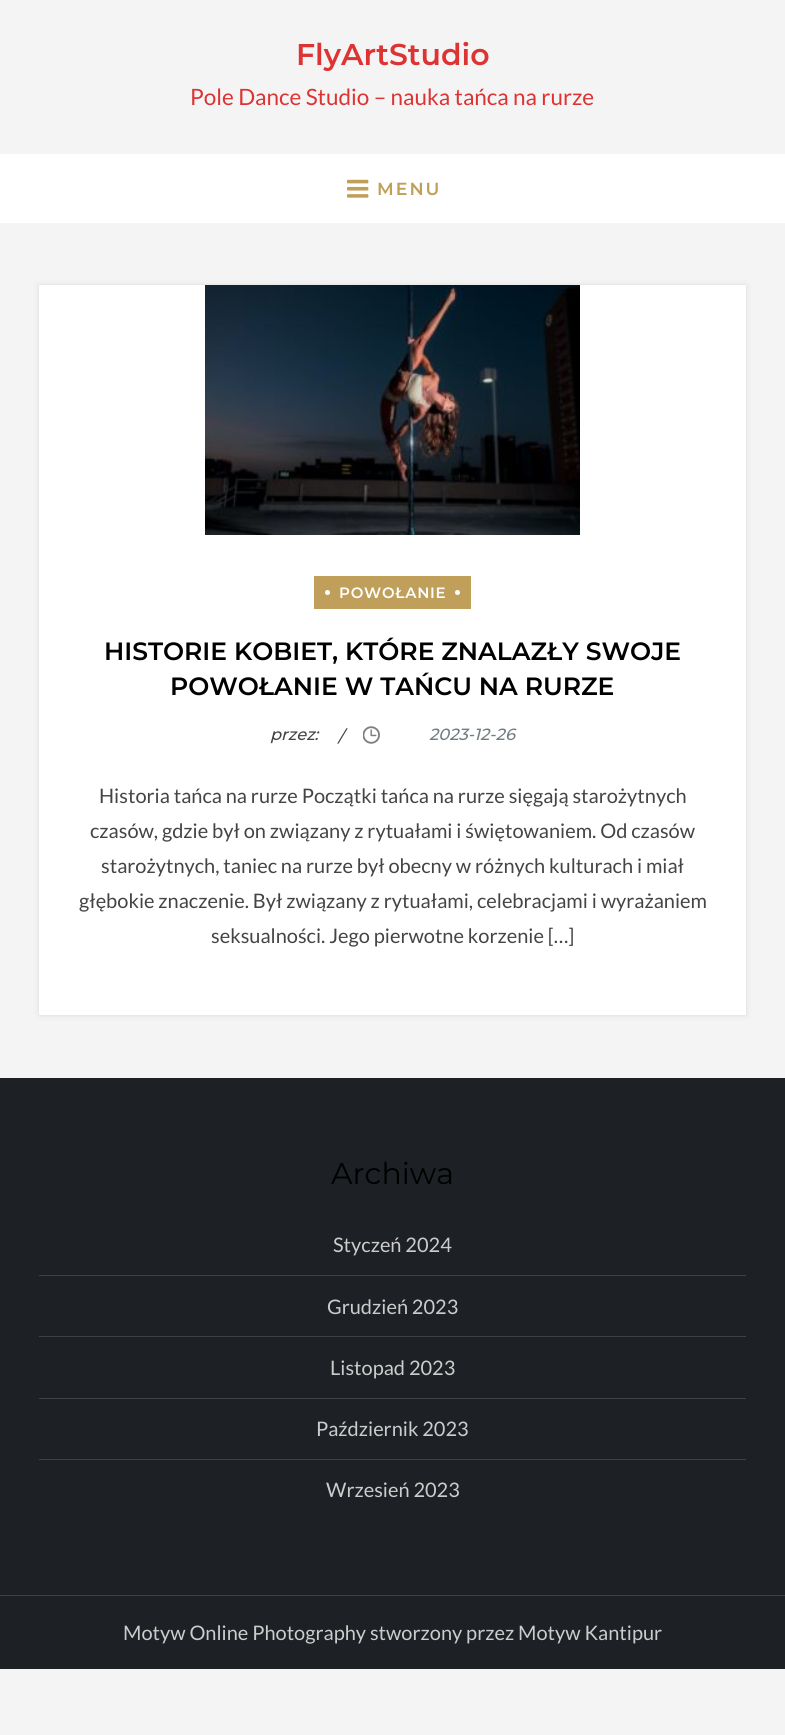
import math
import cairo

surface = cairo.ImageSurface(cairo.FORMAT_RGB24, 785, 1735)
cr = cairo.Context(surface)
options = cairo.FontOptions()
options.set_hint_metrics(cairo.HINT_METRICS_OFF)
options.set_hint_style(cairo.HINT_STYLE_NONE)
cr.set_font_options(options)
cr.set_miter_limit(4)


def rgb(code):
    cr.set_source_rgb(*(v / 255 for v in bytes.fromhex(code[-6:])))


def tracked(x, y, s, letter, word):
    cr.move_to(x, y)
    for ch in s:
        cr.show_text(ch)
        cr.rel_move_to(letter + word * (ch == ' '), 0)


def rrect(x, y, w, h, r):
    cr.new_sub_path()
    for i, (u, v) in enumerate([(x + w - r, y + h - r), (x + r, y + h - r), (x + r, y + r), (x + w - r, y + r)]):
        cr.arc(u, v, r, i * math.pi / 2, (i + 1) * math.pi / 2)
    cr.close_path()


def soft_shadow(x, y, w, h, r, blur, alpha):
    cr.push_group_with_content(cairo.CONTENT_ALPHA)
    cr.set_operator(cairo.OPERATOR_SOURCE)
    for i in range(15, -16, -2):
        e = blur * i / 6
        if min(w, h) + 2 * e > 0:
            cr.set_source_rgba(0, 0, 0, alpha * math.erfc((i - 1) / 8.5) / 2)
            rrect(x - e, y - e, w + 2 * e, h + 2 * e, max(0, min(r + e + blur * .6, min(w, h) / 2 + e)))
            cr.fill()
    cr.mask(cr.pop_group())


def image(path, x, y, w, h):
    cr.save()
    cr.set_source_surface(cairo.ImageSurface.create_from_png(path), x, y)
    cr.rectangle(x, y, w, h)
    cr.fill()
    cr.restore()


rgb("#f4f4f4")
cr.paint()
rgb("#ffffff")
cr.rectangle(0, 154, 785, 69)
cr.fill()
image("img/1.png", 346, 179, 23, 19)
rgb("#333333")
soft_shadow(39, 285, 707, 730, 0, 1, 0.08)
soft_shadow(39, 285, 707, 730, 0, 4, 0.08)
rgb("#ffffff")
cr.rectangle(39, 285, 707, 730)
cr.fill()
image("img/2.png", 205, 285, 375, 250)
rgb("#c09f5a")
cr.rectangle(314, 576, 157, 33)
cr.fill()
rgb("#ffffff")
cr.arc(327.5, 592.5, 2.5, 0, 2 * math.pi)
cr.fill()
cr.arc(457.5, 592.5, 2.5, 0, 2 * math.pi)
cr.fill()
image("img/3.png", 363, 726, 17, 18)
for x, y, w, h, color in [
    (0, 1078, 785, 591, "#1d2024"),
    (39, 1275, 707, 1, "#3f4145"),
    (39, 1336, 707, 1, "#3f4145"),
    (39, 1398, 707, 1, "#3f4145"),
    (39, 1459, 707, 1, "#3f4145"),
    (0, 1595, 785, 1, "#3f4145"),
]:
    rgb(color)
    cr.rectangle(x, y, w, h)
    cr.fill()
cr.select_font_face("Montserrat SemiBold")
cr.set_font_size(30)
rgb("#dd3333")
cr.move_to(296, 65)
cr.show_text("FlyArtStudio")
cr.select_font_face("Lato")
cr.set_font_size(22.5)
cr.move_to(190, 105)
cr.show_text("Pole Dance Studio – nauka tańca na rurze")
cr.select_font_face("Montserrat SemiBold")
cr.set_font_size(17.5)
rgb("#c09f5a")
tracked(377, 195, "MENU", 2, 0)
cr.set_font_size(15)
rgb("#ffffff")
tracked(339, 598, "POWOŁANIE", 0.75, 0)
cr.set_font_size(25)
rgb("#000000")
cr.move_to(104, 660)
cr.show_text("HISTORIE KOBIET, KTÓRE ZNALAZŁY SWOJE")
cr.move_to(170, 695)
cr.show_text("POWOŁANIE W TAŃCU NA RURZE")
cr.select_font_face("Montserrat Medium", cairo.FONT_SLANT_ITALIC)
cr.set_font_size(16.25)
rgb("#444444")
cr.move_to(270, 740)
cr.show_text("przez:")
cr.move_to(338, 742)
cr.show_text("/")
rgb("#717e81")
cr.move_to(429, 740)
cr.show_text("2023-12-26")
cr.select_font_face("Lato")
cr.set_font_size(20)
rgb("#444444")
for x, y, s in [
    (99, 803, "Historia tańca na rurze Początki tańca na rurze sięgają starożytnych"),
    (90, 838, "czasów, gdzie był on związany z rytuałami i świętowaniem. Od czasów"),
    (101, 873, "starożytnych, taniec na rurze był obecny w różnych kulturach i miał"),
    (79, 908, "głębokie znaczenie. Był związany z rytuałami, celebracjami i wyrażaniem"),
    (211, 943, "seksualności. Jego pierwotne korzenie […]"),
]:
    cr.move_to(x, y)
    cr.show_text(s)
cr.select_font_face("Montserrat")
cr.set_font_size(30)
rgb("#000000")
cr.move_to(331, 1184)
cr.show_text("Archiwa")
cr.select_font_face("Lato")
cr.set_font_size(20)
rgb("#cccccc")
for x, y, s in [
    (333, 1252, "Styczeń 2024"),
    (327, 1314, "Grudzień 2023"),
    (330, 1375, "Listopad 2023"),
    (316, 1436, "Październik 2023"),
    (326, 1497, "Wrzesień 2023"),
    (123, 1640, "Motyw Online Photography stworzony przez Motyw Kantipur"),
]:
    cr.move_to(x, y)
    cr.show_text(s)
surface.write_to_png("page.png")
